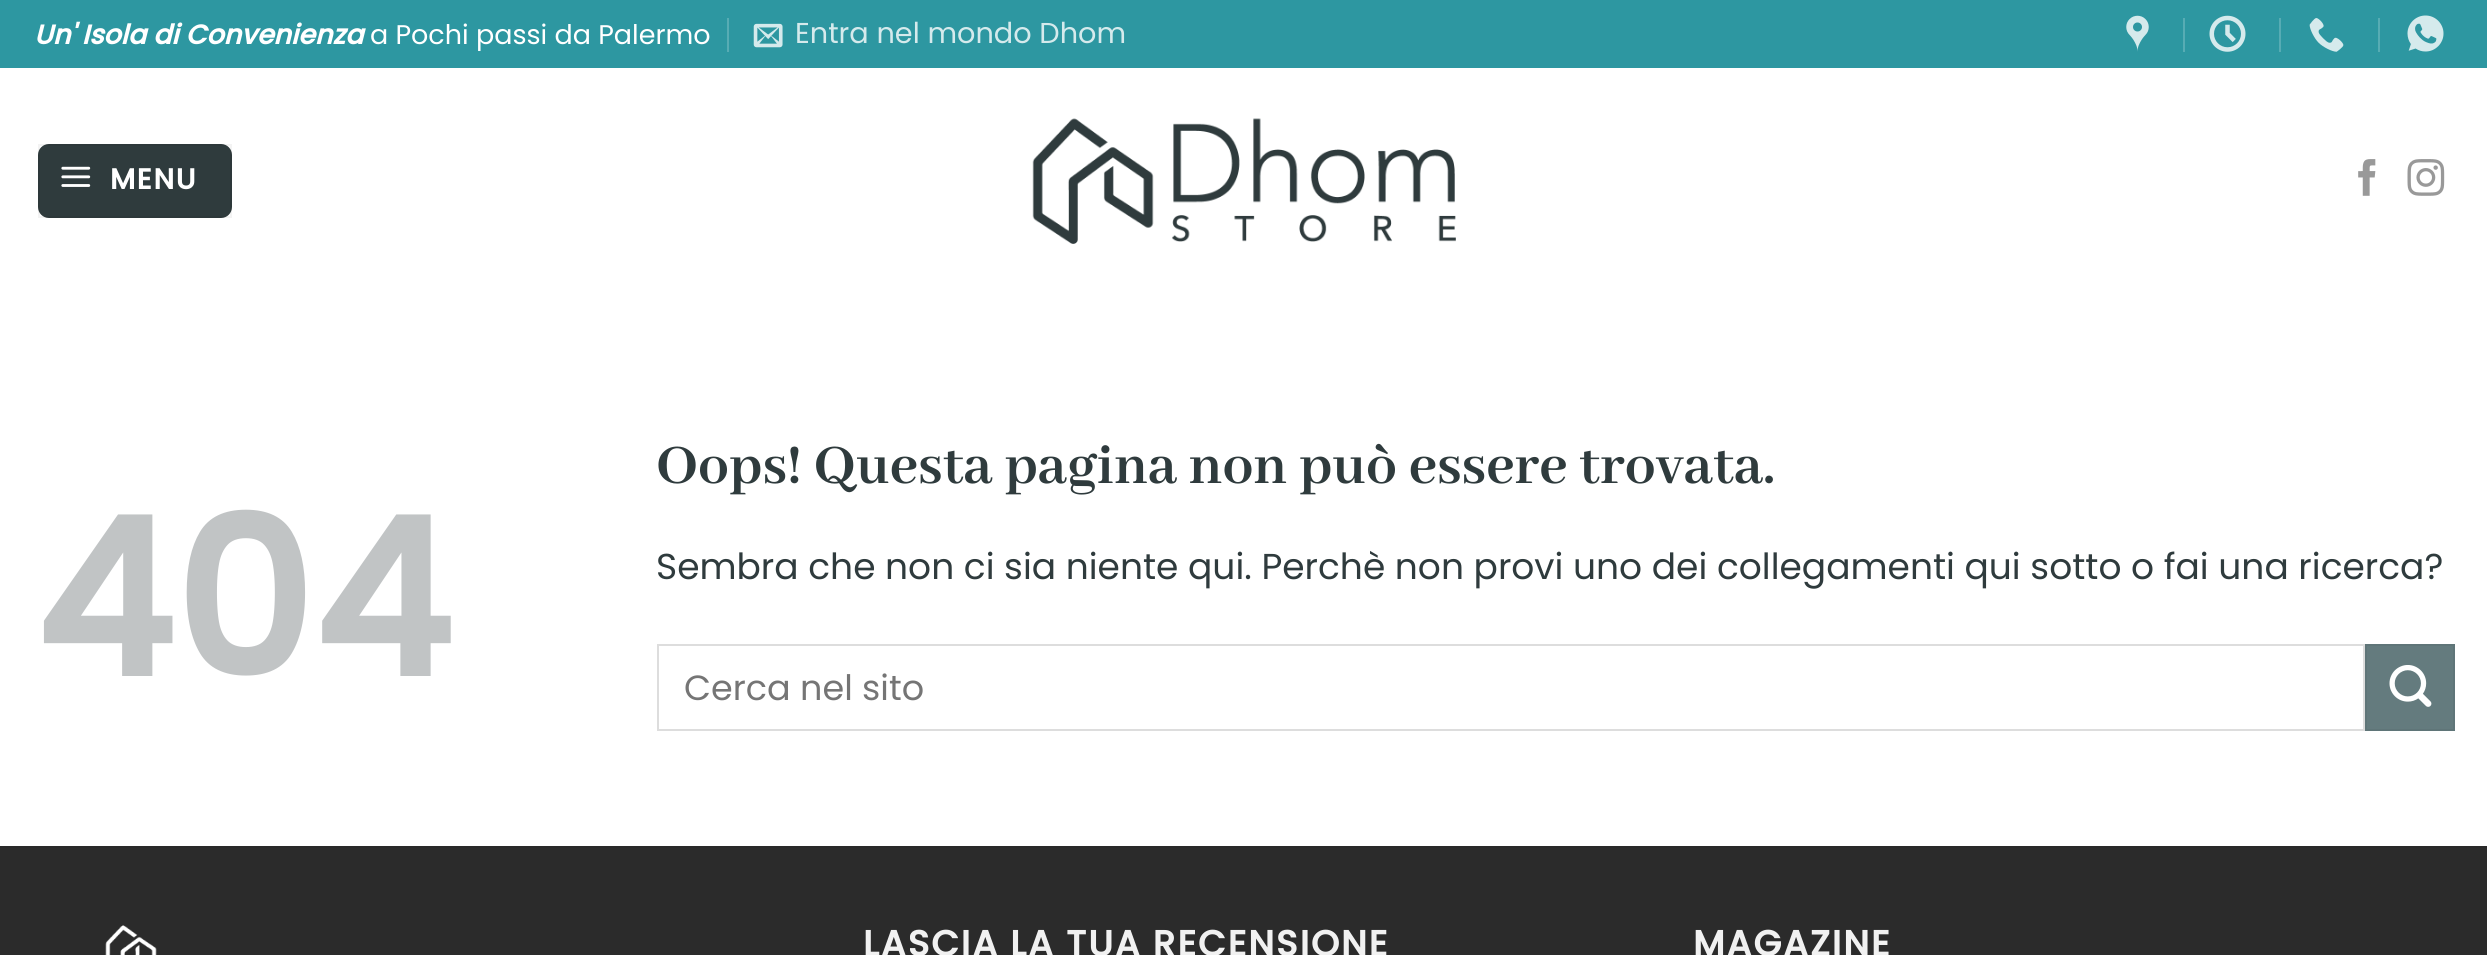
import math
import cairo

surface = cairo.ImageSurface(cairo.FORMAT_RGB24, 2487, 955)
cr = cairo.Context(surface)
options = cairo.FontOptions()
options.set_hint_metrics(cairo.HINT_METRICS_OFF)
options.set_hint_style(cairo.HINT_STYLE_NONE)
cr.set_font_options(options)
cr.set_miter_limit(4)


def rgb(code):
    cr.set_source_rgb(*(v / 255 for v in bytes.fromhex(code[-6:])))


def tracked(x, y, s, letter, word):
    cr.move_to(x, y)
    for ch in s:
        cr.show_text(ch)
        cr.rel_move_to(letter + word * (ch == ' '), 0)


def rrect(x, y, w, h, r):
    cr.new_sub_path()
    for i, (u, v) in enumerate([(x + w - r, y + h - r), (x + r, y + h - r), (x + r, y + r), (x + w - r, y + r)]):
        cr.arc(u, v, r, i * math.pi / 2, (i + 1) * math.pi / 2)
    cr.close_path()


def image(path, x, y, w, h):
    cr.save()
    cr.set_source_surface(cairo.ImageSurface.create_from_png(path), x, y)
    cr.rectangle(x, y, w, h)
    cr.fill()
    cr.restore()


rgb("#ffffff")
cr.paint()
rgb("#2d97a1")
cr.rectangle(0, 0, 2487, 68)
cr.fill()
rgb("#57acb4")
cr.rectangle(727, 18, 2, 34)
cr.fill()
image("img/1.png", 753, 23, 30, 25)
image("img/2.png", 2126, 15, 23, 37)
cr.rectangle(2183, 18, 2, 34)
cr.fill()
image("img/3.png", 2209, 15, 37, 37)
cr.rectangle(2279, 18, 2, 34)
cr.fill()
image("img/4.png", 2309, 18, 35, 34)
cr.rectangle(2378, 18, 2, 34)
cr.fill()
image("img/5.png", 2407, 15, 37, 37)
rgb("#2f3b3d")
rrect(38, 144, 194, 74, 11)
cr.fill()
cr.rectangle(39, 145, 192, 72)
cr.set_source_rgba(0, 0, 0, 0.05)
cr.stroke()
image("img/6.png", 61, 166, 30, 21)
image("img/7.png", 1032, 118, 424, 126)
image("img/8.png", 2358, 159, 18, 37)
image("img/9.png", 2407, 159, 38, 37)
cr.rectangle(658, 645, 1706, 85)
rgb("#dddddd")
cr.stroke()
rgb("#647b7e")
cr.rectangle(2366, 645, 88, 85)
cr.fill_preserve()
rgb("#5f7578")
cr.stroke()
image("img/10.png", 2389, 665, 43, 42)
rgb("#2b2b2b")
cr.rectangle(0, 848, 2487, 107)
cr.fill()
rgb("#292929")
cr.rectangle(0, 846, 2487, 2)
cr.fill()
image("img/11.png", 105, 925, 52, 30)
cr.select_font_face("Poppins", cairo.FONT_SLANT_ITALIC, cairo.FONT_WEIGHT_BOLD)
cr.set_font_size(27)
rgb("#ffffff")
cr.move_to(34, 44)
cr.show_text("Un' Isola di Convenienza")
cr.select_font_face("Poppins")
cr.move_to(370, 44)
cr.show_text("a Pochi passi da Palermo")
cr.set_font_size(28.75)
rgb("#d5eaec")
cr.move_to(795, 43)
cr.show_text("Entra nel mondo Dhom")
cr.select_font_face("Poppins", cairo.FONT_SLANT_NORMAL, cairo.FONT_WEIGHT_BOLD)
rgb("#ffffff")
tracked(110, 189, "MENU", 1.5, 0)
cr.set_font_size(216)
rgb("#c1c4c5")
cr.move_to(34, 676)
cr.show_text("404")
cr.select_font_face("Abhaya Libre", cairo.FONT_SLANT_NORMAL, cairo.FONT_WEIGHT_BOLD)
cr.set_font_size(61.25)
rgb("#2f3b3d")
cr.move_to(656, 483)
cr.show_text("Oops! Questa pagina non può essere trovata.")
cr.select_font_face("Poppins")
cr.set_font_size(36)
cr.move_to(656, 579)
cr.show_text("Sembra che non ci sia niente qui. Perchè non provi uno dei collegamenti qui sotto o fai una ricerca?")
cr.set_font_size(35)
rgb("#757575")
cr.move_to(684, 700)
cr.show_text("Cerca nel sito")
cr.select_font_face("Poppins", cairo.FONT_SLANT_NORMAL, cairo.FONT_WEIGHT_BOLD)
cr.set_font_size(36)
rgb("#f1f1f1")
tracked(863, 956, "LASCIA LA TUA RECENSIONE", 1.8, 0)
tracked(1693, 956, "MAGAZINE", 1.8, 0)
surface.write_to_png("page.png")
